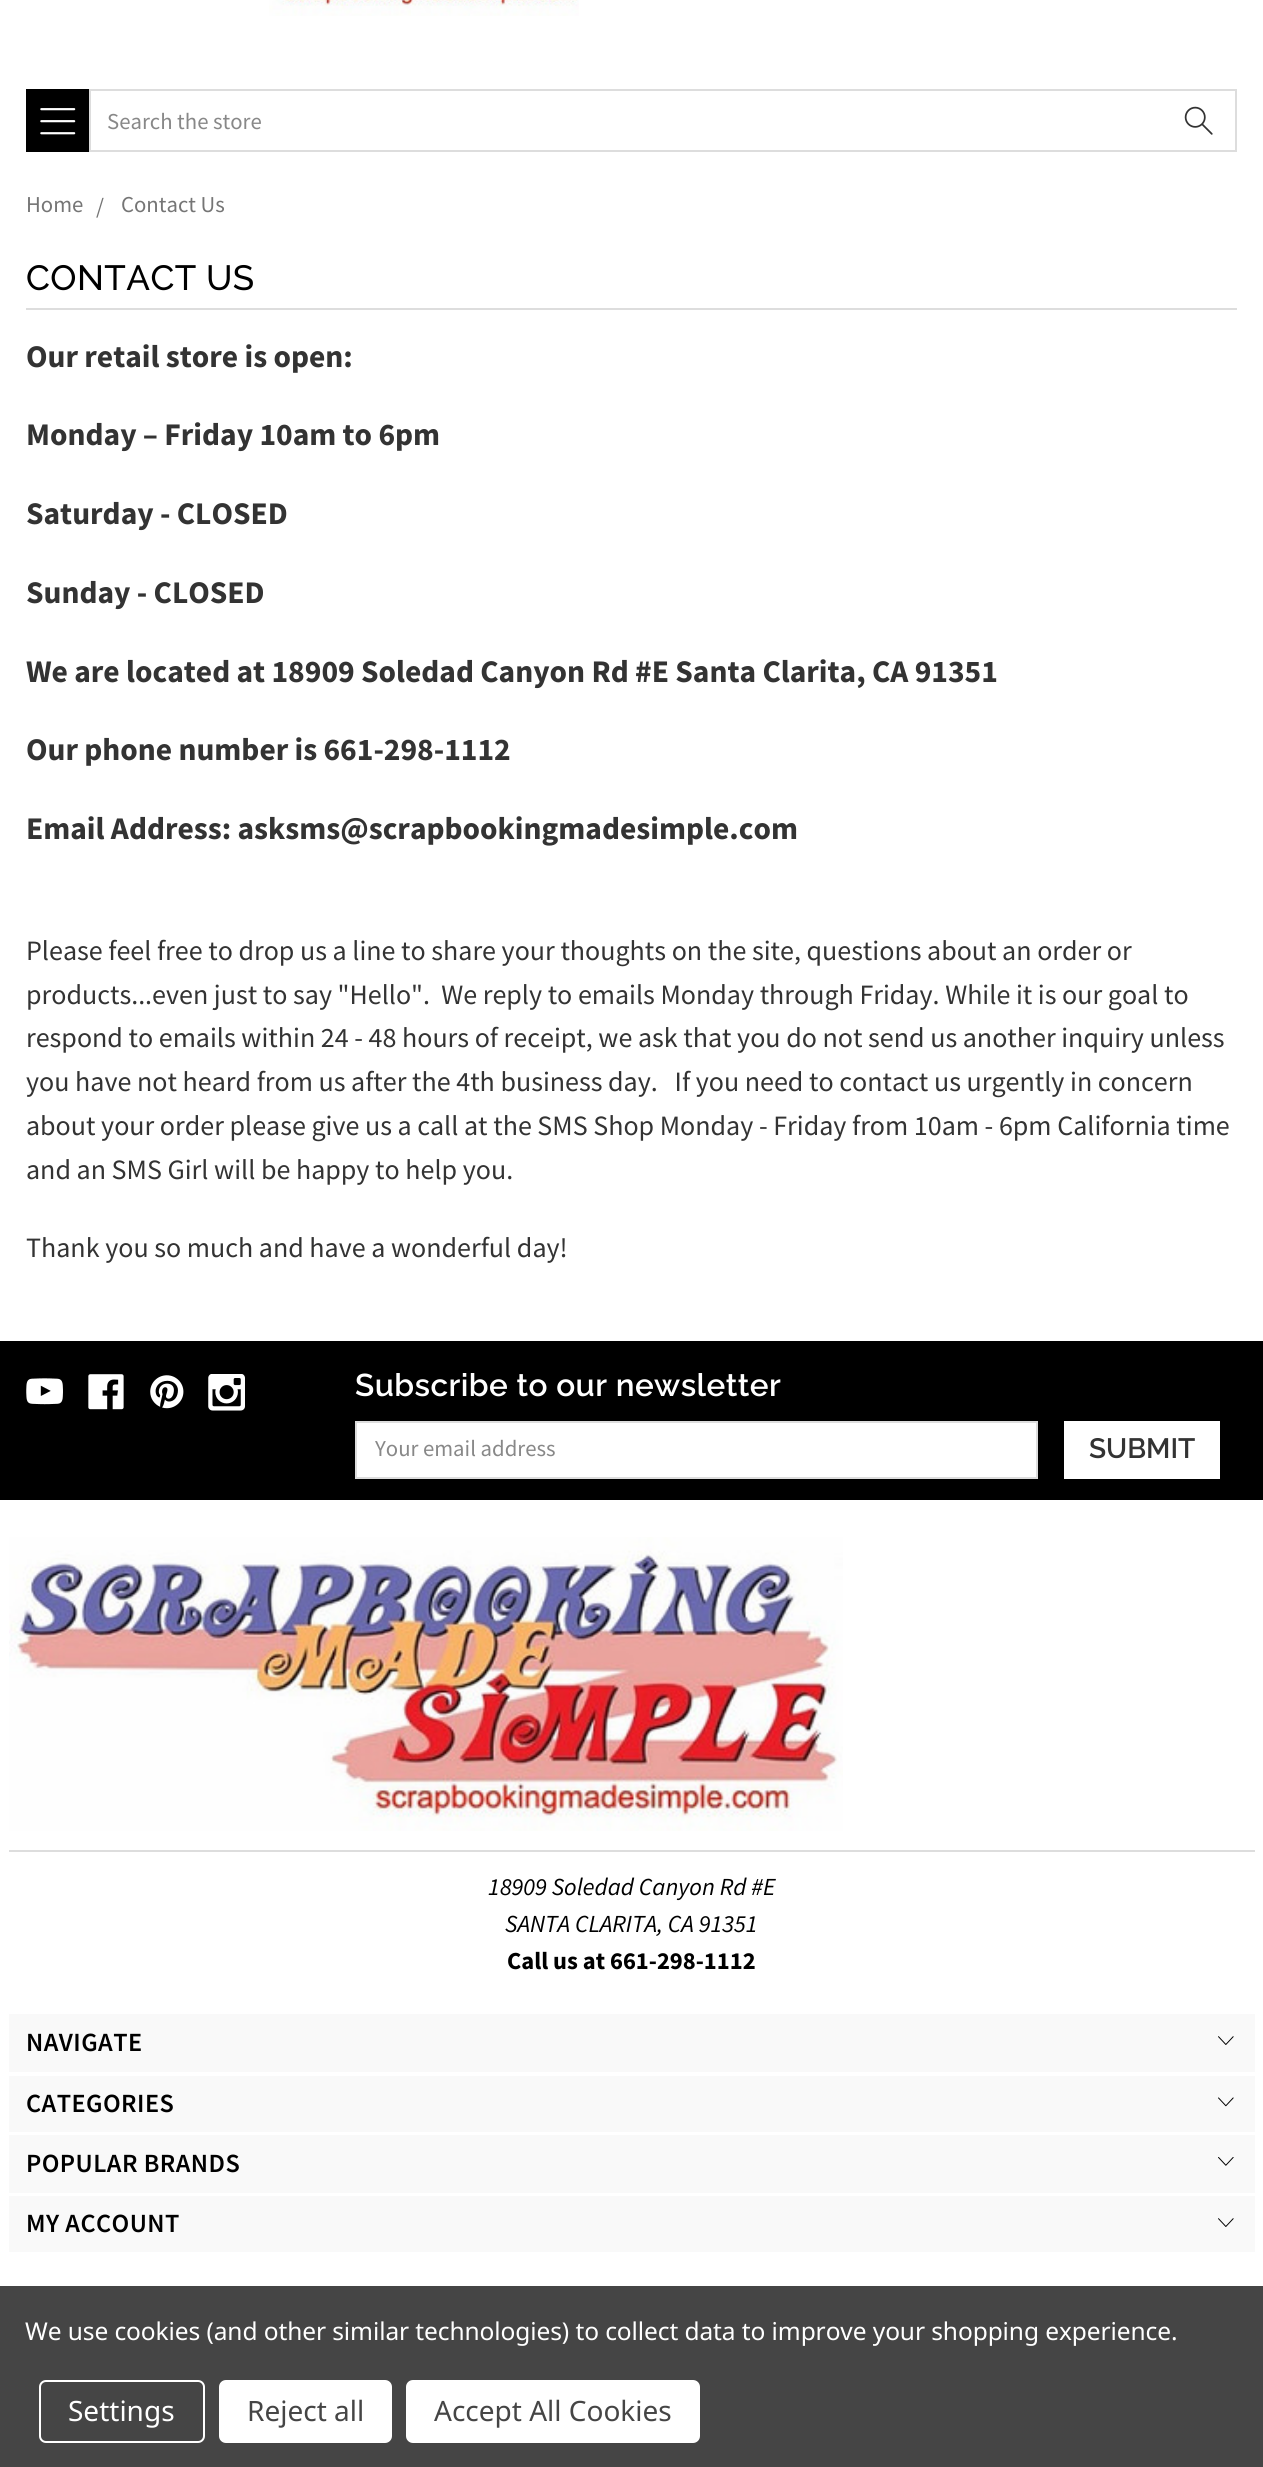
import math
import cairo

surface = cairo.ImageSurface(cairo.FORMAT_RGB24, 1263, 2467)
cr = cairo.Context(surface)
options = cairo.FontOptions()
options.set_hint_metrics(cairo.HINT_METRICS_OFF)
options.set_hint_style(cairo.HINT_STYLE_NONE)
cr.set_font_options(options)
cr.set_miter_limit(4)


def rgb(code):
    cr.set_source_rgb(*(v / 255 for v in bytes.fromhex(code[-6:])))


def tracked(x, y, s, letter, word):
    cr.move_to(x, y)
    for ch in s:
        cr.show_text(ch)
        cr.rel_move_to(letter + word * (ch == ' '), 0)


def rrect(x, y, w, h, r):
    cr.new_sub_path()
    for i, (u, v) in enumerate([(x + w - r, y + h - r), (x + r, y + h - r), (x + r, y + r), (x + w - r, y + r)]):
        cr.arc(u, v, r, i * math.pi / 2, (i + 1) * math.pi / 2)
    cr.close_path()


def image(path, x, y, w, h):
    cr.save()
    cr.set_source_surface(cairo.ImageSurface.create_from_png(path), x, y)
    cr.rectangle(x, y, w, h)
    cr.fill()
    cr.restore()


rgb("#ffffff")
cr.paint()
image("img/1.png", 269, 0, 310, 16)
rgb("#000000")
cr.rectangle(26, 89, 63, 63)
cr.fill()
image("img/2.png", 40, 108, 36, 27)
cr.rectangle(90, 90, 1146, 61)
rgb("#dddddd")
cr.stroke()
image("img/3.png", 1184, 106, 29, 29)
cr.rectangle(26, 308, 1211, 2)
cr.fill()
rgb("#000000")
cr.rectangle(0, 1341, 1263, 159)
cr.fill()
image("img/4.png", 26, 1378, 37, 27)
image("img/5.png", 88, 1374, 36, 36)
image("img/6.png", 150, 1375, 34, 34)
image("img/7.png", 208, 1374, 37, 37)
rgb("#ffffff")
cr.rectangle(356, 1422, 681, 56)
cr.fill_preserve()
rgb("#dddddd")
cr.stroke()
rgb("#ffffff")
cr.rectangle(1064, 1421, 156, 58)
cr.fill()
rgb("#dddddd")
cr.rectangle(9, 1850, 1246, 2)
cr.fill()
image("img/8.png", 9, 1537, 834, 294)
rgb("#f9f9f9")
cr.rectangle(9, 2014, 1246, 58)
cr.fill()
image("img/9.png", 1218, 2036, 16, 9)
cr.rectangle(9, 2076, 1246, 56)
cr.fill()
image("img/10.png", 1218, 2097, 16, 10)
cr.rectangle(9, 2135, 1246, 58)
cr.fill()
image("img/11.png", 1218, 2157, 16, 9)
cr.rectangle(9, 2196, 1246, 56)
cr.fill()
image("img/9.png", 1218, 2218, 16, 9)
rgb("#454545")
cr.rectangle(0, 2286, 1263, 181)
cr.fill()
rrect(40, 2381, 164, 61, 6)
rgb("#ffffff")
cr.stroke()
rrect(219, 2380, 173, 63, 7)
cr.fill()
rrect(406, 2380, 294, 63, 7)
cr.fill()
cr.select_font_face("Source Sans Pro")
cr.set_font_size(22.75)
rgb("#888888")
cr.move_to(107, 129)
cr.show_text("Search the store")
rgb("#757575")
for x, y, s in [
    (26, 212, "Home"),
    (96, 214, "/"),
    (121, 212, "Contact Us"),
]:
    cr.move_to(x, y)
    cr.show_text(s)
cr.select_font_face("Raleway Medium")
cr.set_font_size(35)
rgb("#000000")
tracked(26, 290, "CONTACT US", 0.45, 0)
cr.select_font_face("Source Sans Pro", cairo.FONT_SLANT_NORMAL, cairo.FONT_WEIGHT_BOLD)
cr.set_font_size(31.5)
rgb("#333333")
for x, y, s in [
    (26, 367, "Our retail store is open:"),
    (26, 445, "Monday – Friday 10am to 6pm"),
    (26, 524, "Saturday - CLOSED"),
    (26, 603, "Sunday - CLOSED"),
    (26, 682, "We are located at 18909 Soledad Canyon Rd #E Santa Clarita, CA 91351"),
    (26, 760, "Our phone number is 661-298-1112"),
    (26, 839, "Email Address: asksms@scrapbookingmadesimple.com"),
]:
    cr.move_to(x, y)
    cr.show_text(s)
cr.select_font_face("Source Sans Pro")
cr.set_font_size(28)
for x, y, s in [
    (26, 960, "Please feel free to drop us a line to share your thoughts on the site, questions about an order or"),
    (26, 1004, "products...even just to say \"Hello\".  We reply to emails Monday through Friday. While it is our goal to"),
    (26, 1047, "respond to emails within 24 - 48 hours of receipt, we ask that you do not send us another inquiry unless"),
    (26, 1091, "you have not heard from us after the 4th business day.   If you need to contact us urgently in concern"),
    (26, 1135, "about your order please give us a call at the SMS Shop Monday - Friday from 10am - 6pm California time"),
    (26, 1179, "and an SMS Girl will be happy to help you."),
    (26, 1257, "Thank you so much and have a wonderful day!"),
]:
    cr.move_to(x, y)
    cr.show_text(s)
cr.select_font_face("Raleway SemiBold")
cr.set_font_size(31.5)
rgb("#ffffff")
tracked(355, 1396, "Subscribe to our newsletter", 0.45, 0)
cr.select_font_face("Source Sans Pro")
cr.set_font_size(22.75)
rgb("#888888")
cr.move_to(375, 1456)
cr.show_text("Your email address")
cr.select_font_face("Raleway SemiBold")
cr.set_font_size(28)
rgb("#333333")
cr.move_to(1089, 1458)
cr.show_text("SUBMIT")
cr.select_font_face("Source Sans Pro", cairo.FONT_SLANT_ITALIC)
cr.set_font_size(24.5)
rgb("#000000")
cr.move_to(488, 1895)
cr.show_text("18909 Soledad Canyon Rd #E")
cr.move_to(505, 1932)
cr.show_text("SANTA CLARITA, CA 91351")
cr.select_font_face("Source Sans Pro", cairo.FONT_SLANT_NORMAL, cairo.FONT_WEIGHT_BOLD)
cr.move_to(507, 1969)
cr.show_text("Call us at 661-298-1112")
cr.select_font_face("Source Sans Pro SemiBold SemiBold")
cr.set_font_size(26.25)
for x, y, s in [
    (26, 2051, "NAVIGATE"),
    (26, 2112, "CATEGORIES"),
    (26, 2172, "POPULAR BRANDS"),
    (26, 2232, "MY ACCOUNT"),
]:
    tracked(x, y, s, 0.45, 0)
cr.select_font_face("Noto Sans")
cr.set_font_size(24.5)
rgb("#ffffff")
tracked(25, 2340, "We use cookies (and other similar technologies) to collect data to improve your shopping experience.", -0.09, 0)
cr.set_font_size(28)
cr.move_to(68, 2421)
cr.show_text("Settings")
rgb("#454545")
cr.move_to(247, 2421)
cr.show_text("Reject all")
cr.move_to(434, 2421)
cr.show_text("Accept All Cookies")
surface.write_to_png("page.png")
